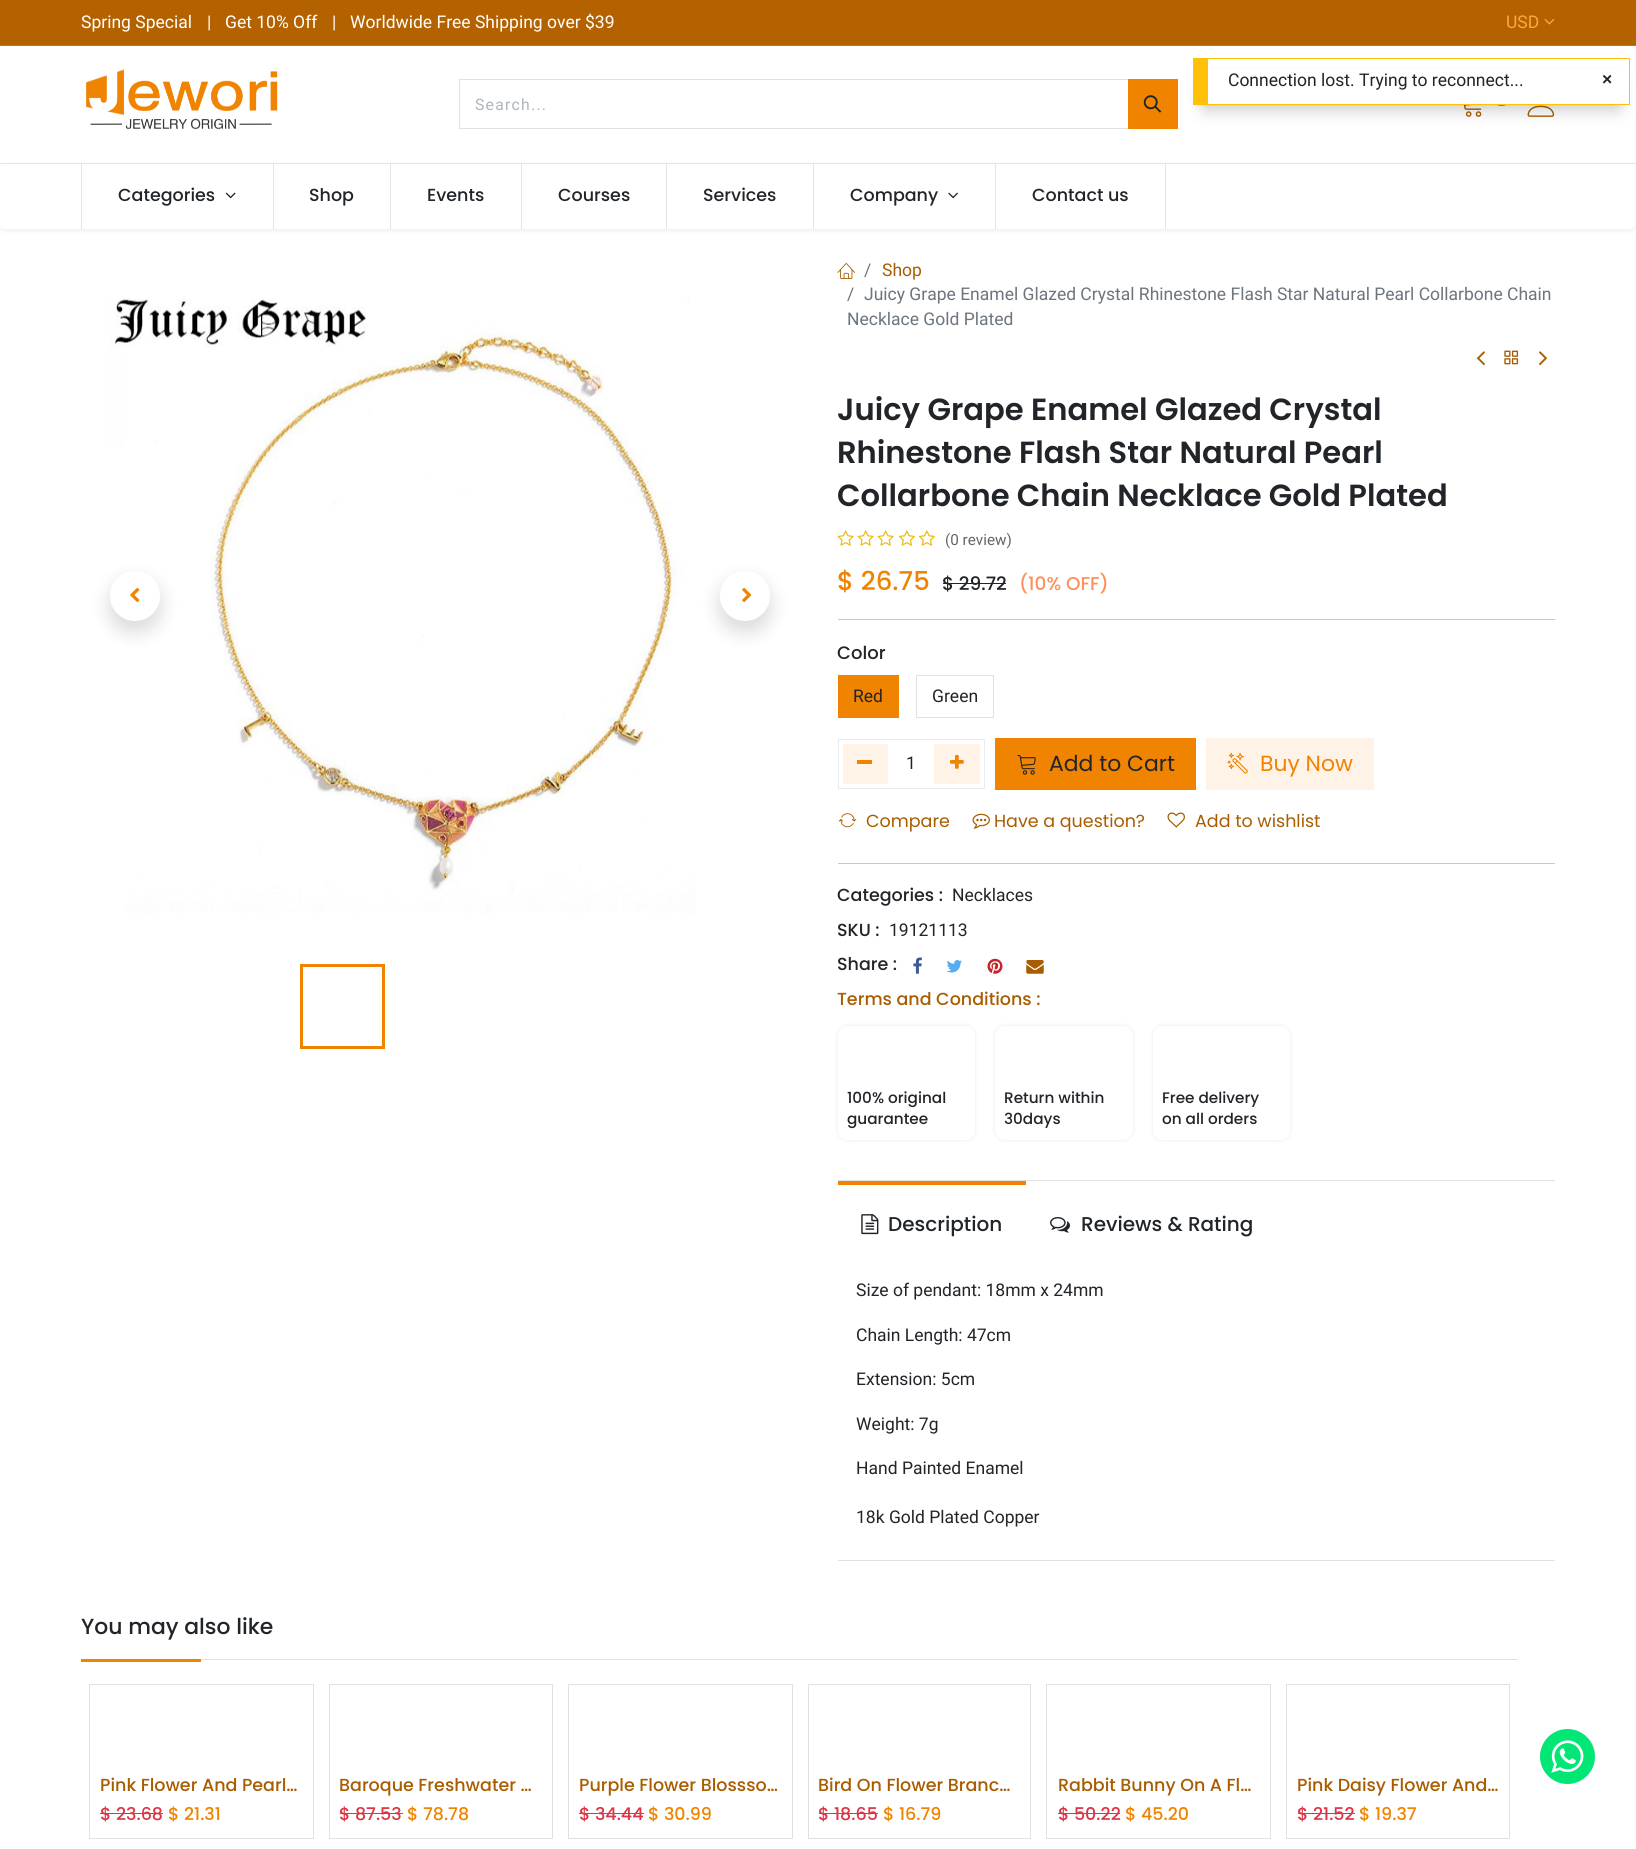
import math
import cairo

surface = cairo.ImageSurface(cairo.FORMAT_RGB24, 1636, 1849)
cr = cairo.Context(surface)
options = cairo.FontOptions()
options.set_hint_metrics(cairo.HINT_METRICS_OFF)
options.set_hint_style(cairo.HINT_STYLE_NONE)
cr.set_font_options(options)
cr.set_miter_limit(4)


def rgb(code):
    cr.set_source_rgb(*(v / 255 for v in bytes.fromhex(code[-6:])))


def tracked(x, y, s, letter, word):
    cr.move_to(x, y)
    for ch in s:
        cr.show_text(ch)
        cr.rel_move_to(letter + word * (ch == ' '), 0)


def rrect(x, y, w, h, r):
    cr.new_sub_path()
    for i, (u, v) in enumerate([(x + w - r, y + h - r), (x + r, y + h - r), (x + r, y + r), (x + w - r, y + r)]):
        cr.arc(u, v, r, i * math.pi / 2, (i + 1) * math.pi / 2)
    cr.close_path()


def soft_shadow(x, y, w, h, r, blur, alpha):
    cr.push_group_with_content(cairo.CONTENT_ALPHA)
    cr.set_operator(cairo.OPERATOR_SOURCE)
    for i in range(15, -16, -2):
        e = blur * i / 6
        if min(w, h) + 2 * e > 0:
            cr.set_source_rgba(0, 0, 0, alpha * math.erfc((i - 1) / 8.5) / 2)
            rrect(x - e, y - e, w + 2 * e, h + 2 * e, max(0, min(r + e + blur * .6, min(w, h) / 2 + e)))
            cr.fill()
    cr.mask(cr.pop_group())


def image(path, x, y, w, h):
    cr.save()
    cr.set_source_surface(cairo.ImageSurface.create_from_png(path), x, y)
    cr.rectangle(x, y, w, h)
    cr.fill()
    cr.restore()


rgb("#ffffff")
cr.paint()
rgb("#b46200")
cr.rectangle(0, 0, 1636, 45)
cr.fill()
rgb("#bd751f")
cr.rectangle(0, 45, 1636, 1)
cr.fill()
image("img/1.png", 1544, 19, 11, 6)
rgb("#e4e5e5")
cr.rectangle(0, 163, 1636, 1)
cr.fill()
image("img/2.png", 86, 69, 192, 61)
cr.rectangle(459.5, 79.5, 669, 49)
rgb("#dee2e6")
cr.set_line_width(1)
cr.stroke()
rgb("#f08300")
cr.rectangle(1128, 79, 50, 50)
cr.fill()
image("img/3.png", 1143, 95, 19, 18)
cr.arc(1501.5, 94.5, 11.5, 0, 2 * math.pi)
cr.fill()
image("img/4.png", 1463, 105, 19, 12)
image("img/5.png", 1527, 105, 28, 12)
rgb("#000000")
soft_shadow(0, 166, 1636, 65, 6, 2.5, 0.07)
rgb("#ffffff")
rrect(0, 164, 1636, 65, 6)
cr.fill()
rgb("#e4e5e5")
cr.rectangle(81, 164, 1, 65)
cr.fill()
image("img/6.png", 225, 192, 11, 7)
for x, y, w, h, color in [
    (273, 164, 1, 65, "#e4e5e5"),
    (390, 164, 1, 65, "#e4e5e5"),
    (521, 164, 1, 65, "#e4e5e5"),
    (666, 164, 1, 65, "#e4e5e5"),
    (813, 164, 1, 65, "#e4e5e5"),
]:
    rgb(color)
    cr.rectangle(x, y, w, h)
    cr.fill()
image("img/7.png", 948, 192, 10, 7)
cr.rectangle(1165, 164, 1, 65)
cr.fill()
cr.rectangle(995, 164, 1, 65)
cr.fill()
image("img/8.png", 109, 298, 587, 615)
rgb("#000000")
soft_shadow(110, 581, 50, 50, 25, 10, 0.15)
rgb("#ffffff")
cr.arc(135, 596, 25, 0, 2 * math.pi)
cr.fill()
image("img/9.png", 130, 587, 10, 16)
rgb("#000000")
soft_shadow(720, 581, 50, 50, 25, 10, 0.15)
rgb("#ffffff")
cr.arc(745, 596, 25, 0, 2 * math.pi)
cr.fill()
image("img/10.png", 742, 587, 10, 16)
cr.rectangle(301.5, 965.5, 82, 82)
rgb("#f08300")
cr.set_line_width(3)
cr.stroke()
image("img/11.png", 837, 263, 18, 16)
image("img/12.png", 1476, 351, 9, 15)
image("img/13.png", 1504, 350, 15, 15)
image("img/14.png", 1539, 351, 8, 15)
image("img/15.png", 837, 530, 17, 16)
image("img/15.png", 857, 530, 17, 16)
image("img/15.png", 877, 530, 17, 16)
image("img/16.png", 898, 530, 17, 16)
image("img/16.png", 918, 530, 17, 16)
for x, y, w, h, color in [
    (943, 583, 63, 1, "#212529"),
    (838, 619, 717, 1, "#c8c9ca"),
    (838, 675, 61, 43, "#f08300"),
]:
    rgb(color)
    cr.rectangle(x, y, w, h)
    cr.fill()
cr.rectangle(916.5, 675.5, 77, 42)
rgb("#dee2e6")
cr.set_line_width(1)
cr.stroke()
cr.rectangle(838.5, 739.5, 146, 49)
rgb("#e9ecef")
cr.stroke()
for x, y, w, h, color in [
    (843, 744, 45, 40, "#fef3e6"),
    (857, 760, 15, 4, "#f08300"),
    (934, 744, 46, 40, "#fef3e6"),
]:
    rgb(color)
    cr.rectangle(x, y, w, h)
    cr.fill()
image("img/17.png", 950, 755, 14, 14)
rgb("#f08300")
cr.rectangle(995, 738, 201, 52)
cr.fill()
image("img/18.png", 1017, 755, 19, 20)
rgb("#fef3e6")
cr.rectangle(1206, 738, 168, 52)
cr.fill()
image("img/19.png", 1227, 752, 21, 22)
image("img/20.png", 838, 813, 19, 15)
image("img/21.png", 972, 813, 18, 16)
image("img/22.png", 1167, 812, 18, 16)
rgb("#c8c9ca")
cr.rectangle(838, 863, 717, 1)
cr.fill()
image("img/23.png", 913, 957, 9, 17)
image("img/24.png", 946, 960, 16, 13)
image("img/25.png", 987, 958, 16, 16)
image("img/26.png", 1026, 960, 18, 14)
cr.save()
cr.set_fill_rule(cairo.FILL_RULE_EVEN_ODD)
cr.new_path()
cr.move_to(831, 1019)
cr.line_to(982, 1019)
cr.line_to(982, 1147)
cr.line_to(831, 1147)
cr.close_path()
cr.move_to(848, 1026)
cr.line_to(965, 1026)
cr.curve_to(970.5, 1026, 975, 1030.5, 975, 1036)
cr.line_to(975, 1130)
cr.curve_to(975, 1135.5, 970.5, 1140, 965, 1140)
cr.line_to(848, 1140)
cr.curve_to(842.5, 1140, 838, 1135.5, 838, 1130)
cr.line_to(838, 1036)
cr.curve_to(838, 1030.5, 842.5, 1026, 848, 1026)
cr.close_path()
cr.clip()
rgb("#000000")
soft_shadow(838, 1026, 137, 114, 10, 2, 0.1)
cr.restore()
cr.save()
cr.set_fill_rule(cairo.FILL_RULE_EVEN_ODD)
cr.new_path()
cr.move_to(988, 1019)
cr.line_to(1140, 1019)
cr.line_to(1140, 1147)
cr.line_to(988, 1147)
cr.close_path()
cr.move_to(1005, 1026)
cr.line_to(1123, 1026)
cr.curve_to(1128.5, 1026, 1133, 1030.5, 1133, 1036)
cr.line_to(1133, 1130)
cr.curve_to(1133, 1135.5, 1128.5, 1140, 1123, 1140)
cr.line_to(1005, 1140)
cr.curve_to(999.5, 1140, 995, 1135.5, 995, 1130)
cr.line_to(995, 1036)
cr.curve_to(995, 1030.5, 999.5, 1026, 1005, 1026)
cr.close_path()
cr.clip()
rgb("#000000")
soft_shadow(995, 1026, 138, 114, 10, 2, 0.1)
cr.restore()
cr.save()
cr.set_fill_rule(cairo.FILL_RULE_EVEN_ODD)
cr.new_path()
cr.move_to(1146, 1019)
cr.line_to(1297, 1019)
cr.line_to(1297, 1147)
cr.line_to(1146, 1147)
cr.close_path()
cr.move_to(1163, 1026)
cr.line_to(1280, 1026)
cr.curve_to(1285.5, 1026, 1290, 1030.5, 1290, 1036)
cr.line_to(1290, 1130)
cr.curve_to(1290, 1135.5, 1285.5, 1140, 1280, 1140)
cr.line_to(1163, 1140)
cr.curve_to(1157.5, 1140, 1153, 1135.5, 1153, 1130)
cr.line_to(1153, 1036)
cr.curve_to(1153, 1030.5, 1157.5, 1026, 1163, 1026)
cr.close_path()
cr.clip()
rgb("#000000")
soft_shadow(1153, 1026, 137, 114, 10, 2, 0.1)
cr.restore()
rgb("#dee2e6")
cr.rectangle(838, 1180, 717, 1)
cr.fill()
rgb("#f08300")
cr.rectangle(838, 1181, 188, 4)
cr.fill()
image("img/27.png", 861, 1214, 18, 21)
image("img/28.png", 1050, 1217, 20, 16)
for x, y, w, h, color in [
    (838, 1560, 717, 1, "#dee2e6"),
    (201, 1659, 1317, 1, "#dee2e6"),
    (81, 1659, 120, 3, "#f08300"),
]:
    rgb(color)
    cr.rectangle(x, y, w, h)
    cr.fill()
cr.rectangle(89.5, 1684.5, 224, 154)
rgb("#dee2e6")
cr.stroke()
rgb("#dc3545")
cr.rectangle(100, 1813, 63, 1)
cr.fill()
cr.rectangle(329.5, 1684.5, 223, 154)
rgb("#dee2e6")
cr.stroke()
rgb("#dc3545")
cr.rectangle(340, 1813, 63, 1)
cr.fill()
cr.rectangle(568.5, 1684.5, 224, 154)
rgb("#dee2e6")
cr.stroke()
rgb("#dc3545")
cr.rectangle(579, 1813, 65, 1)
cr.fill()
cr.rectangle(808.5, 1684.5, 222, 154)
rgb("#dee2e6")
cr.stroke()
rgb("#dc3545")
cr.rectangle(819, 1813, 59, 1)
cr.fill()
cr.rectangle(1046.5, 1684.5, 224, 154)
rgb("#dee2e6")
cr.stroke()
rgb("#dc3545")
cr.rectangle(1058, 1813, 62, 1)
cr.fill()
cr.rectangle(1286.5, 1684.5, 223, 154)
rgb("#dee2e6")
cr.stroke()
rgb("#dc3545")
cr.rectangle(1298, 1813, 57, 1)
cr.fill()
rgb("#000000")
soft_shadow(1205, 85, 413, 23, 0, 9, 0.25)
for x, y, w, h, color in [
    (1208, 69, 421, 35, "#ffffff"),
    (1208, 58, 422, 1, "#ffc107"),
    (1629, 58, 1, 47, "#ffc107"),
    (1208, 104, 422, 1, "#ffc107"),
    (1193, 58, 15, 47, "#ffc107"),
]:
    rgb(color)
    cr.rectangle(x, y, w, h)
    cr.fill()
rgb("#01e675")
cr.arc(1567.5, 1756.5, 29.5, 0, 2 * math.pi)
cr.fill_preserve()
rgb("#ffffff")
cr.set_line_width(4)
cr.stroke()
image("img/29.png", 1551, 1740, 33, 33)
cr.select_font_face("Roboto")
cr.set_font_size(17.5)
for x, y, s in [
    (81, 28, "Spring Special"),
    (207, 28, "|"),
    (225, 28, "Get 10% Off"),
    (332, 28, "|"),
    (350, 28, "Worldwide Free Shipping over $39"),
]:
    cr.move_to(x, y)
    cr.show_text(s)
rgb("#ffa73e")
cr.move_to(1506, 28)
cr.show_text("USD")
cr.set_font_size(15.75)
rgb("#adb5bd")
tracked(475, 110, "Search...", 1.25, 0)
cr.select_font_face("Poppins Medium")
cr.set_font_size(17.5)
rgb("#212529")
for x, y, s in [
    (118, 201, "Categories"),
    (309, 201, "Shop"),
    (427, 201, "Events"),
    (558, 201, "Courses"),
    (703, 201, "Services"),
    (850, 201, "Company"),
    (1032, 201, "Contact us"),
]:
    cr.move_to(x, y)
    cr.show_text(s)
cr.select_font_face("Roboto")
rgb("#6c757d")
cr.move_to(864, 276)
cr.show_text("/")
rgb("#a95c00")
cr.move_to(882, 276)
cr.show_text("Shop")
rgb("#6c757d")
for x, y, s in [
    (847, 300, "/"),
    (864, 300, "Juicy Grape Enamel Glazed Crystal Rhinestone Flash Star Natural Pearl Collarbone Chain"),
    (847, 325, "Necklace Gold Plated"),
]:
    cr.move_to(x, y)
    cr.show_text(s)
cr.select_font_face("Poppins SemiBold")
cr.set_font_size(30.6)
rgb("#212529")
for x, y, s in [
    (837, 420, "Juicy Grape Enamel Glazed Crystal"),
    (837, 463, "Rhinestone Flash Star Natural Pearl"),
    (837, 506, "Collarbone Chain Necklace Gold Plated"),
]:
    cr.move_to(x, y)
    cr.show_text(s)
cr.select_font_face("Roboto")
cr.set_font_size(15.25)
rgb("#646669")
cr.move_to(945, 545)
cr.show_text("(0 review)")
cr.select_font_face("Poppins Medium")
cr.set_font_size(26)
rgb("#f08300")
cr.move_to(837, 590)
cr.show_text("$ 26.75")
cr.set_font_size(18.5)
rgb("#212529")
cr.move_to(942, 590)
cr.show_text("$ 29.72")
rgb("#ff905a")
cr.move_to(1019, 590)
cr.show_text("(10% OFF)")
cr.set_font_size(18)
rgb("#212529")
cr.move_to(837, 659)
cr.show_text("Color")
cr.select_font_face("Roboto")
cr.set_font_size(17.5)
for x, y, s in [
    (853, 702, "Red"),
    (932, 702, "Green"),
    (906, 769, "1"),
]:
    cr.move_to(x, y)
    cr.show_text(s)
cr.select_font_face("Poppins")
cr.set_font_size(21.9)
cr.move_to(1049, 771)
cr.show_text("Add to Cart")
rgb("#f08300")
cr.move_to(1260, 771)
cr.show_text("Buy Now")
cr.set_font_size(17.5)
rgb("#a95c00")
for x, y, s in [
    (866, 827, "Compare"),
    (994, 827, "Have a question?"),
    (1195, 827, "Add to wishlist"),
]:
    cr.move_to(x, y)
    cr.show_text(s)
cr.select_font_face("Poppins Medium")
rgb("#212529")
cr.move_to(837, 901)
cr.show_text("Categories :")
cr.select_font_face("Roboto")
cr.move_to(952, 901)
cr.show_text("Necklaces")
cr.select_font_face("Poppins Medium")
cr.move_to(837, 936)
cr.show_text("SKU :")
cr.select_font_face("Roboto")
cr.move_to(889, 936)
cr.show_text("19121113")
cr.select_font_face("Poppins Medium")
cr.move_to(837, 970)
cr.show_text("Share :")
rgb("#a95c00")
cr.move_to(837, 1005)
cr.show_text("Terms and Conditions :")
cr.set_font_size(15.25)
rgb("#212529")
for x, y, s in [
    (847, 1103, "100% original"),
    (847, 1124, "guarantee"),
    (1004, 1103, "Return within"),
    (1004, 1124, "30days"),
    (1162, 1103, "Free delivery"),
    (1162, 1124, "on all orders"),
]:
    cr.move_to(x, y)
    cr.show_text(s)
cr.set_font_size(20)
cr.move_to(888, 1231)
cr.show_text("Description")
cr.move_to(1081, 1231)
cr.show_text("Reviews & Rating")
cr.select_font_face("Roboto")
cr.set_font_size(17.5)
for x, y, s in [
    (856, 1296, "Size of pendant: 18mm x 24mm"),
    (856, 1341, "Chain Length: 47cm"),
    (856, 1385, "Extension: 5cm"),
    (856, 1430, "Weight: 7g"),
    (856, 1474, "Hand Painted Enamel"),
    (856, 1523, "18k Gold Plated Copper"),
]:
    cr.move_to(x, y)
    cr.show_text(s)
cr.select_font_face("Poppins Medium")
cr.set_font_size(21.9)
cr.move_to(81, 1634)
cr.show_text("You may also like")
cr.set_font_size(17.5)
rgb("#a95c00")
cr.move_to(100, 1791)
cr.show_text("Pink Flower And Pearl…")
rgb("#dc3545")
cr.move_to(100, 1820)
cr.show_text("$ 23.68")
rgb("#f08300")
cr.move_to(168, 1820)
cr.show_text("$ 21.31")
rgb("#a95c00")
cr.move_to(339, 1791)
cr.show_text("Baroque Freshwater …")
rgb("#dc3545")
cr.move_to(339, 1820)
cr.show_text("$ 87.53")
rgb("#f08300")
cr.move_to(407, 1820)
cr.show_text("$ 78.78")
rgb("#a95c00")
cr.move_to(579, 1791)
cr.show_text("Purple Flower Blossso…")
rgb("#dc3545")
cr.move_to(579, 1820)
cr.show_text("$ 34.44")
rgb("#f08300")
cr.move_to(648, 1820)
cr.show_text("$ 30.99")
rgb("#a95c00")
cr.move_to(818, 1791)
cr.show_text("Bird On Flower Branc…")
rgb("#dc3545")
cr.move_to(818, 1820)
cr.show_text("$ 18.65")
rgb("#f08300")
cr.move_to(883, 1820)
cr.show_text("$ 16.79")
rgb("#a95c00")
cr.move_to(1058, 1791)
cr.show_text("Rabbit Bunny On A Fl…")
rgb("#dc3545")
cr.move_to(1058, 1820)
cr.show_text("$ 50.22")
rgb("#f08300")
cr.move_to(1125, 1820)
cr.show_text("$ 45.20")
rgb("#a95c00")
cr.move_to(1297, 1791)
cr.show_text("Pink Daisy Flower And…")
rgb("#dc3545")
cr.move_to(1297, 1820)
cr.show_text("$ 21.52")
rgb("#f08300")
cr.move_to(1359, 1820)
cr.show_text("$ 19.37")
cr.select_font_face("Roboto")
rgb("#212529")
cr.move_to(1228, 86)
cr.show_text("Connection lost. Trying to reconnect...")
cr.select_font_face("Liberation Sans", cairo.FONT_SLANT_NORMAL, cairo.FONT_WEIGHT_BOLD)
cr.move_to(1602, 85)
cr.show_text("×")
surface.write_to_png("page.png")
